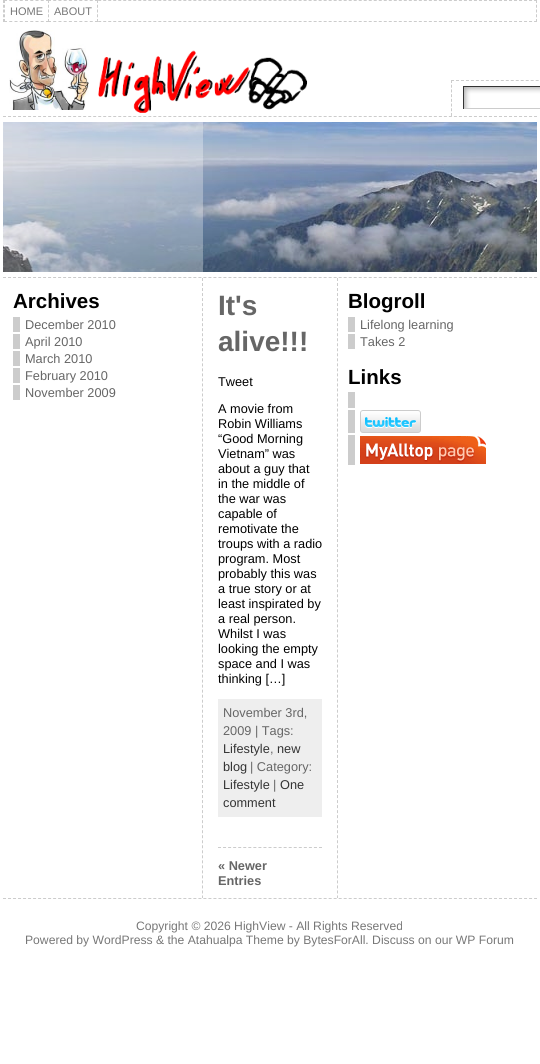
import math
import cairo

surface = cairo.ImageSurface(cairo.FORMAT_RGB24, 540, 1064)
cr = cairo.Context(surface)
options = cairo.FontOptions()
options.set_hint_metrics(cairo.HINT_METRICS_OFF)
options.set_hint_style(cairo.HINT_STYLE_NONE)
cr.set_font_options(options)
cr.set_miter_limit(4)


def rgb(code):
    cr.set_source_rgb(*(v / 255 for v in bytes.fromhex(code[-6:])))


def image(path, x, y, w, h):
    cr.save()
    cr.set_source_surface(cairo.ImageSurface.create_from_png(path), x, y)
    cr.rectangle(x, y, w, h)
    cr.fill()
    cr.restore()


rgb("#ffffff")
cr.paint()
cr.new_path()
cr.move_to(3, 0.5)
cr.line_to(537, 0.5)
rgb("#cccccc")
cr.set_line_width(1)
cr.set_dash([3, 2.01])
cr.stroke()
cr.new_path()
cr.move_to(536.5, 0)
cr.line_to(536.5, 22)
cr.set_dash([3, 1.75])
cr.stroke()
cr.new_path()
cr.move_to(3, 21.5)
cr.line_to(537, 21.5)
cr.set_dash([3, 2.01])
cr.stroke()
cr.new_path()
cr.move_to(3.5, 0)
cr.line_to(3.5, 22)
cr.set_dash([3, 1.75])
cr.stroke()
rgb("#ffffff")
cr.rectangle(4, 0, 43, 22)
cr.fill()
cr.new_path()
cr.move_to(4, 0.5)
cr.line_to(49, 0.5)
cr.move_to(4, 21.5)
cr.line_to(49, 21.5)
rgb("#cccccc")
cr.set_dash([3, 2.25])
cr.stroke()
cr.new_path()
cr.move_to(4.5, 0)
cr.line_to(4.5, 22)
cr.set_dash([3, 1.75])
cr.stroke()
rgb("#ffffff")
cr.rectangle(48, 0, 49, 22)
cr.fill()
cr.new_path()
cr.move_to(48, 0.5)
cr.line_to(98, 0.5)
rgb("#cccccc")
cr.set_dash([3, 2.22])
cr.stroke()
cr.new_path()
cr.move_to(97.5, 0)
cr.line_to(97.5, 22)
cr.set_dash([3, 1.75])
cr.stroke()
cr.new_path()
cr.move_to(48, 21.5)
cr.line_to(98, 21.5)
cr.set_dash([3, 2.22])
cr.stroke()
cr.new_path()
cr.move_to(48.5, 0)
cr.line_to(48.5, 22)
cr.set_dash([3, 1.75])
cr.stroke()
image("img/1.png", 9, 30, 299, 83)
cr.new_path()
cr.move_to(451, 80.5)
cr.line_to(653, 80.5)
cr.set_dash([3, 1.98])
cr.stroke()
cr.new_path()
cr.move_to(451.5, 80)
cr.line_to(451.5, 116)
cr.set_dash([3, 1.71])
cr.stroke()
image("img/2.png", 464, 87, 76, 21)
for x, y, w, h, color in [
    (463, 86, 77, 1, "#333333"),
    (463, 108, 77, 1, "#cccccc"),
    (463, 86, 1, 23, "#333333"),
]:
    rgb(color)
    cr.rectangle(x, y, w, h)
    cr.fill()
cr.new_path()
cr.move_to(3, 116.5)
cr.line_to(537, 116.5)
rgb("#cccccc")
cr.set_dash([3, 2.01])
cr.stroke()
image("img/3.png", 3, 122, 534, 150)
cr.set_source_rgba(1, 1, 1, 0.3)
cr.rectangle(3, 122, 200, 150)
cr.fill()
cr.new_path()
cr.move_to(3, 277.5)
cr.line_to(537, 277.5)
rgb("#cccccc")
cr.stroke()
cr.new_path()
cr.move_to(202.5, 278)
cr.line_to(202.5, 898)
cr.set_dash([3, 2.02])
cr.stroke()
for x, y, w, h, color in [
    (13, 317, 7, 15, "#cccccc"),
    (13, 334, 7, 15, "#cccccc"),
    (13, 351, 7, 15, "#cccccc"),
    (13, 368, 7, 15, "#cccccc"),
    (13, 385, 7, 15, "#cccccc"),
    (218, 699, 104, 118, "#eeeeee"),
]:
    rgb(color)
    cr.rectangle(x, y, w, h)
    cr.fill()
cr.new_path()
cr.move_to(218, 847.5)
cr.line_to(322, 847.5)
rgb("#cccccc")
cr.set_dash([3, 2.05])
cr.stroke()
cr.new_path()
cr.move_to(337.5, 278)
cr.line_to(337.5, 898)
cr.set_dash([3, 2.02])
cr.stroke()
for x, y, w, h, color in [
    (348, 317, 7, 15, "#cccccc"),
    (348, 334, 7, 15, "#cccccc"),
    (348, 392, 7, 16, "#cccccc"),
    (348, 410, 7, 23, "#cccccc"),
]:
    rgb(color)
    cr.rectangle(x, y, w, h)
    cr.fill()
image("img/4.png", 360, 410, 61, 23)
cr.rectangle(348, 435, 7, 30)
cr.fill()
image("img/5.png", 360, 436, 126, 28)
cr.new_path()
cr.move_to(3, 898.5)
cr.line_to(537, 898.5)
cr.set_dash([3, 2.01])
cr.stroke()
cr.select_font_face("Liberation Sans")
cr.set_font_size(11)
rgb("#777777")
cr.move_to(10, 15)
cr.show_text("HOME")
cr.move_to(54, 15)
cr.show_text("ABOUT")
cr.select_font_face("Liberation Sans", cairo.FONT_SLANT_NORMAL, cairo.FONT_WEIGHT_BOLD)
cr.set_font_size(20.5)
rgb("#000000")
cr.move_to(13, 308)
cr.show_text("Archives")
cr.select_font_face("Liberation Sans")
cr.set_font_size(12.75)
rgb("#666666")
for x, y, s in [
    (25, 329, "December 2010"),
    (25, 346, "April 2010"),
    (25, 363, "March 2010"),
    (25, 380, "February 2010"),
    (25, 397, "November 2009"),
]:
    cr.move_to(x, y)
    cr.show_text(s)
cr.select_font_face("Liberation Sans", cairo.FONT_SLANT_NORMAL, cairo.FONT_WEIGHT_BOLD)
cr.set_font_size(28)
cr.move_to(218, 315)
cr.show_text("It's")
cr.move_to(218, 351)
cr.show_text("alive!!!")
cr.select_font_face("Liberation Sans")
cr.set_font_size(12.75)
rgb("#000000")
for x, y, s in [
    (218, 386, "Tweet"),
    (218, 413, "A movie from"),
    (218, 428, "Robin Williams"),
    (218, 443, "“Good Morning"),
    (218, 458, "Vietnam” was"),
    (218, 473, "about a guy that"),
    (218, 488, "in the middle of"),
    (218, 503, "the war was"),
    (218, 518, "capable of"),
    (218, 533, "remotivate the"),
    (218, 548, "troups with a radio"),
    (218, 563, "program. Most"),
    (218, 578, "probably this was"),
    (218, 593, "a true story or at"),
    (218, 608, "least inspirated by"),
    (218, 623, "a real person."),
    (218, 638, "Whilst I was"),
    (218, 653, "looking the empty"),
    (218, 668, "space and I was"),
    (218, 683, "thinking […]"),
]:
    cr.move_to(x, y)
    cr.show_text(s)
rgb("#666666")
cr.move_to(223, 717)
cr.show_text("November 3rd,")
cr.move_to(223, 735)
cr.show_text("2009 | Tags:")
rgb("#333333")
cr.move_to(223, 753)
cr.show_text("Lifestyle")
rgb("#666666")
cr.move_to(270, 753)
cr.show_text(",")
rgb("#333333")
cr.move_to(277, 753)
cr.show_text("new")
cr.move_to(223, 771)
cr.show_text("blog")
rgb("#666666")
cr.move_to(250, 771)
cr.show_text("| Category:")
rgb("#333333")
cr.move_to(223, 789)
cr.show_text("Lifestyle")
rgb("#666666")
cr.move_to(273, 789)
cr.show_text("|")
rgb("#333333")
cr.move_to(280, 789)
cr.show_text("One")
cr.move_to(223, 807)
cr.show_text("comment")
cr.select_font_face("Liberation Sans", cairo.FONT_SLANT_NORMAL, cairo.FONT_WEIGHT_BOLD)
rgb("#666666")
cr.move_to(218, 870)
cr.show_text("« Newer")
cr.move_to(218, 885)
cr.show_text("Entries")
cr.set_font_size(20.5)
rgb("#000000")
cr.move_to(348, 308)
cr.show_text("Blogroll")
cr.select_font_face("Liberation Sans")
cr.set_font_size(12.75)
rgb("#666666")
cr.move_to(360, 329)
cr.show_text("Lifelong learning")
cr.move_to(360, 346)
cr.show_text("Takes 2")
cr.select_font_face("Liberation Sans", cairo.FONT_SLANT_NORMAL, cairo.FONT_WEIGHT_BOLD)
cr.set_font_size(20.5)
rgb("#000000")
cr.move_to(348, 384)
cr.show_text("Links")
cr.select_font_face("Liberation Sans")
cr.set_font_size(12.15)
rgb("#777777")
cr.move_to(136, 930)
cr.show_text("Copyright © 2026 HighView - All Rights Reserved")
cr.move_to(25, 944)
cr.show_text("Powered by WordPress & the Atahualpa Theme by BytesForAll. Discuss on our WP Forum")
surface.write_to_png("page.png")
